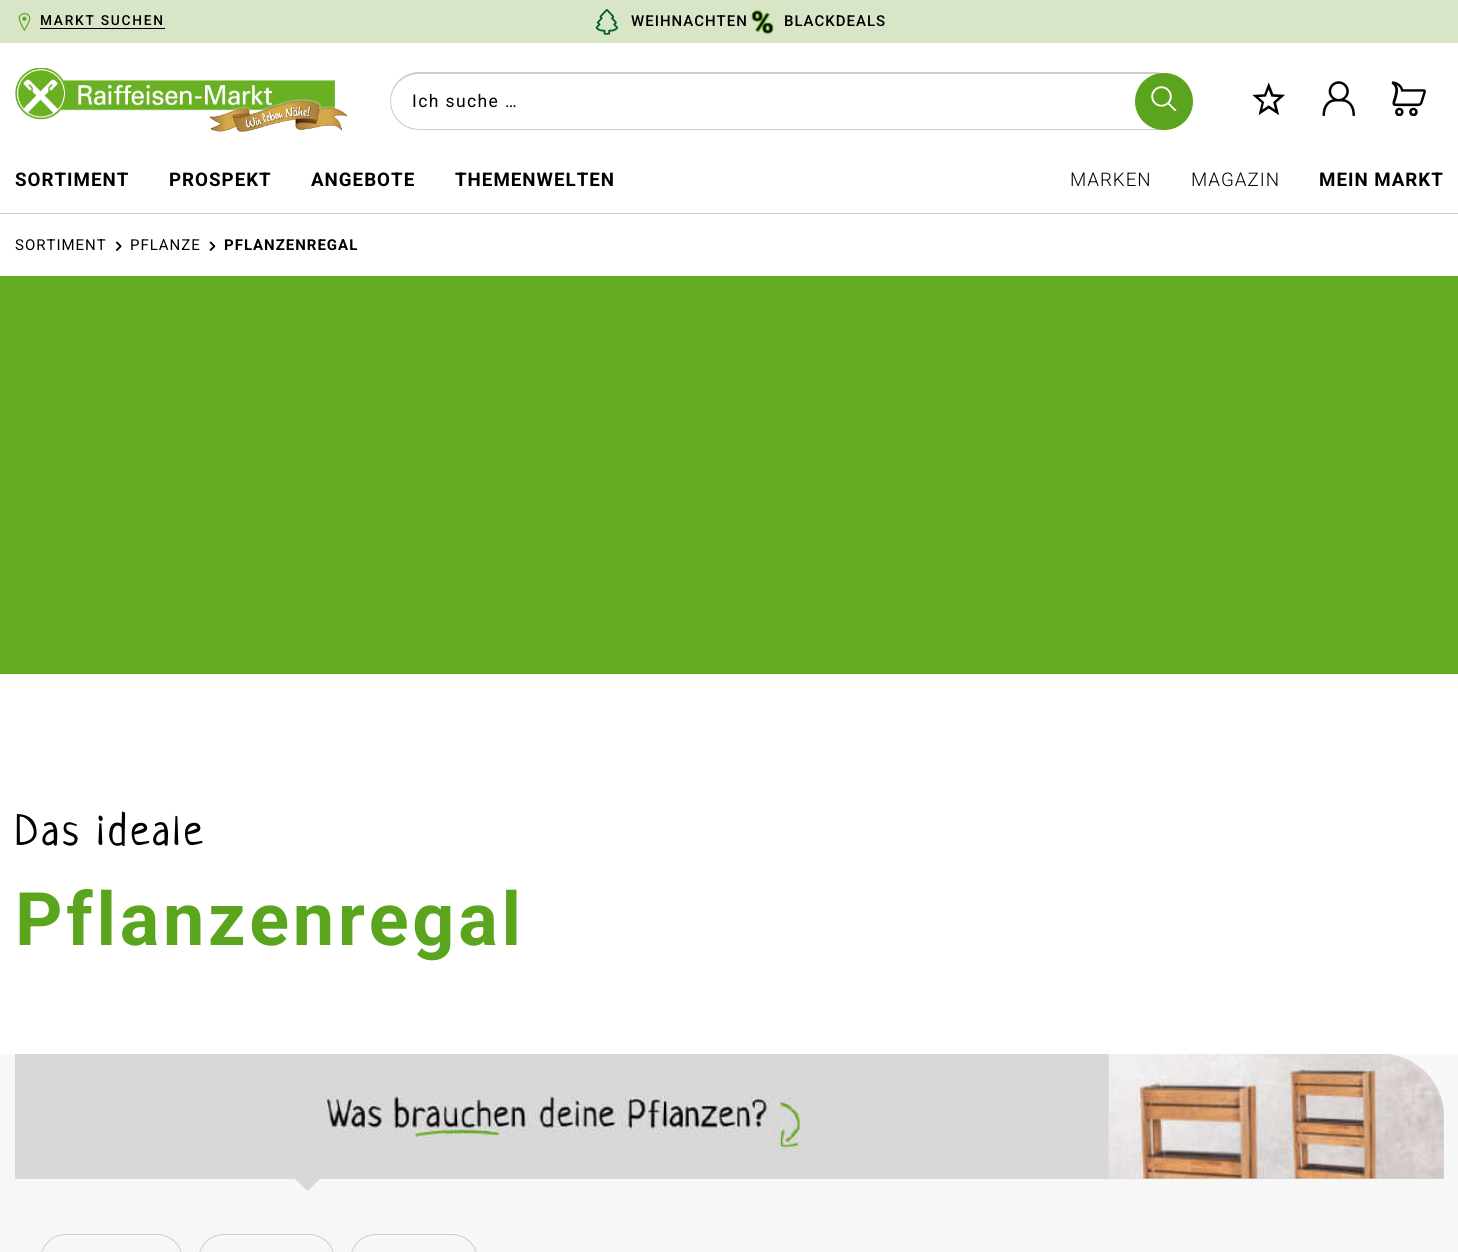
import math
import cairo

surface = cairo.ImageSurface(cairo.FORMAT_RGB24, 1458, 1252)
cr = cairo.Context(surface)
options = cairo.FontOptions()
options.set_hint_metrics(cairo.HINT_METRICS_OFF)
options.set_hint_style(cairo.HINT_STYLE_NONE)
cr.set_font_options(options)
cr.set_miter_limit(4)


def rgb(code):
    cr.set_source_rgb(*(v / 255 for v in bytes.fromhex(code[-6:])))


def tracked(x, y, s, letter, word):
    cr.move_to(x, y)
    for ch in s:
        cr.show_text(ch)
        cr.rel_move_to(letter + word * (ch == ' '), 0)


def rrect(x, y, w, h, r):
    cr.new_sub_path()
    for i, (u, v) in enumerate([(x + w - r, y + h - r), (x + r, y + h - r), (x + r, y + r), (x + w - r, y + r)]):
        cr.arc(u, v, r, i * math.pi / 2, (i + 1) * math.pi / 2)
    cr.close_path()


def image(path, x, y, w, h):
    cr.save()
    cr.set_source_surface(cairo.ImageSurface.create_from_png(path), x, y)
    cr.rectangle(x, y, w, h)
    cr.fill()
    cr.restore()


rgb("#ffffff")
cr.paint()
rgb("#d8e6c7")
cr.rectangle(0, 0, 1458, 43)
cr.fill()
image("img/1.png", 18, 13, 13, 18)
rgb("#000000")
cr.rectangle(40, 28, 125, 1)
cr.fill()
image("img/2.png", 595, 9, 24, 26)
image("img/3.png", 751, 10, 23, 25)
image("img/4.png", 15, 68, 332, 64)
rgb("#cdcdcd")
cr.set_fill_rule(cairo.FILL_RULE_EVEN_ODD)
cr.new_path()
cr.move_to(419, 72)
cr.line_to(1154, 72)
cr.curve_to(1170, 72, 1182, 85, 1182, 101)
cr.curve_to(1182, 117, 1170, 130, 1154, 130)
cr.line_to(419, 130)
cr.curve_to(403, 130, 390, 117, 390, 101)
cr.curve_to(390, 85, 403, 72, 419, 72)
cr.close_path()
cr.move_to(419, 74)
cr.line_to(1154, 74)
cr.curve_to(1170, 74, 1182, 86, 1182, 101)
cr.curve_to(1182, 116, 1170, 129, 1154, 129)
cr.line_to(419, 129)
cr.curve_to(404, 129, 391, 116, 391, 101)
cr.curve_to(391, 86, 404, 74, 419, 74)
cr.close_path()
cr.fill()
rgb("#5ba41e")
rrect(1135, 73, 58, 57, 28.5)
cr.fill()
image("img/5.png", 1151, 86, 26, 25)
image("img/6.png", 1252, 82, 33, 33)
image("img/7.png", 1322, 81, 33, 35)
image("img/8.png", 1391, 81, 35, 35)
rgb("#cdcdcd")
cr.rectangle(0, 213, 1458, 1)
cr.fill()
image("img/9.png", 116, 241, 6, 10)
image("img/10.png", 209, 241, 7, 10)
rgb("#65ab1f")
cr.rectangle(0, 276, 1458, 398)
cr.fill()
rgb("#f7f7f7")
cr.rectangle(0, 1054, 1458, 198)
cr.fill()
rgb("#d8d8d8")
cr.new_path()
cr.move_to(15, 1054)
cr.line_to(1381.5, 1054)
cr.curve_to(1416, 1054, 1444, 1082, 1444, 1116.5)
cr.line_to(1444, 1179)
cr.line_to(15, 1179)
cr.close_path()
cr.fill()
image("img/11.png", 325, 1095, 475, 58)
image("img/12.png", 1108, 1054, 336, 125)
cr.set_fill_rule(cairo.FILL_RULE_WINDING)
cr.new_path()
cr.move_to(295, 1179)
cr.line_to(320, 1179)
cr.line_to(307.5, 1191)
cr.close_path()
cr.fill()
rrect(40.5, 1234.5, 142, 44, 25.5)
rgb("#cdcdcd")
cr.set_line_width(1)
cr.stroke()
rrect(198.5, 1234.5, 136, 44, 25.5)
cr.stroke()
rrect(350.5, 1234.5, 127, 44, 25.5)
cr.stroke()
cr.select_font_face("Roboto Medium")
cr.set_font_size(13.75)
rgb("#000000")
tracked(40, 25, "MARKT SUCHEN", 1.75, 0)
cr.set_font_size(15)
tracked(631, 26, "WEIHNACHTEN", 1, 0)
tracked(784, 26, "BLACKDEALS", 1, 0)
cr.select_font_face("Roboto")
cr.set_font_size(17.5)
tracked(412, 107, "Ich suche …", 1.4, 0)
cr.select_font_face("Roboto", cairo.FONT_SLANT_NORMAL, cairo.FONT_WEIGHT_BOLD)
cr.set_font_size(18.75)
for x, y, s in [
    (15, 186, "SORTIMENT"),
    (169, 186, "PROSPEKT"),
    (311, 186, "ANGEBOTE"),
    (455, 186, "THEMENWELTEN"),
]:
    tracked(x, y, s, 1, 0)
cr.select_font_face("Roboto Light")
tracked(1070, 186, "MARKEN", 1, 0)
tracked(1191, 186, "MAGAZIN", 1, 0)
cr.select_font_face("Roboto", cairo.FONT_SLANT_NORMAL, cairo.FONT_WEIGHT_BOLD)
tracked(1319, 186, "MEIN MARKT", 1, 0)
cr.select_font_face("Roboto")
cr.set_font_size(15)
tracked(15, 250, "SORTIMENT", 1, 0)
tracked(130, 250, "PFLANZE", 1, 0)
cr.select_font_face("Roboto", cairo.FONT_SLANT_NORMAL, cairo.FONT_WEIGHT_BOLD)
tracked(224, 250, "PFLANZENREGAL", 1, 0)
cr.select_font_face("Neucha")
cr.set_font_size(43.5)
tracked(15, 845, "Das ideale", 3.1, 0)
cr.select_font_face("Roboto", cairo.FONT_SLANT_NORMAL, cairo.FONT_WEIGHT_BOLD)
cr.set_font_size(73.75)
rgb("#5ba41e")
tracked(15, 945, "Pflanzenregal", 3.75, 0)
surface.write_to_png("page.png")
